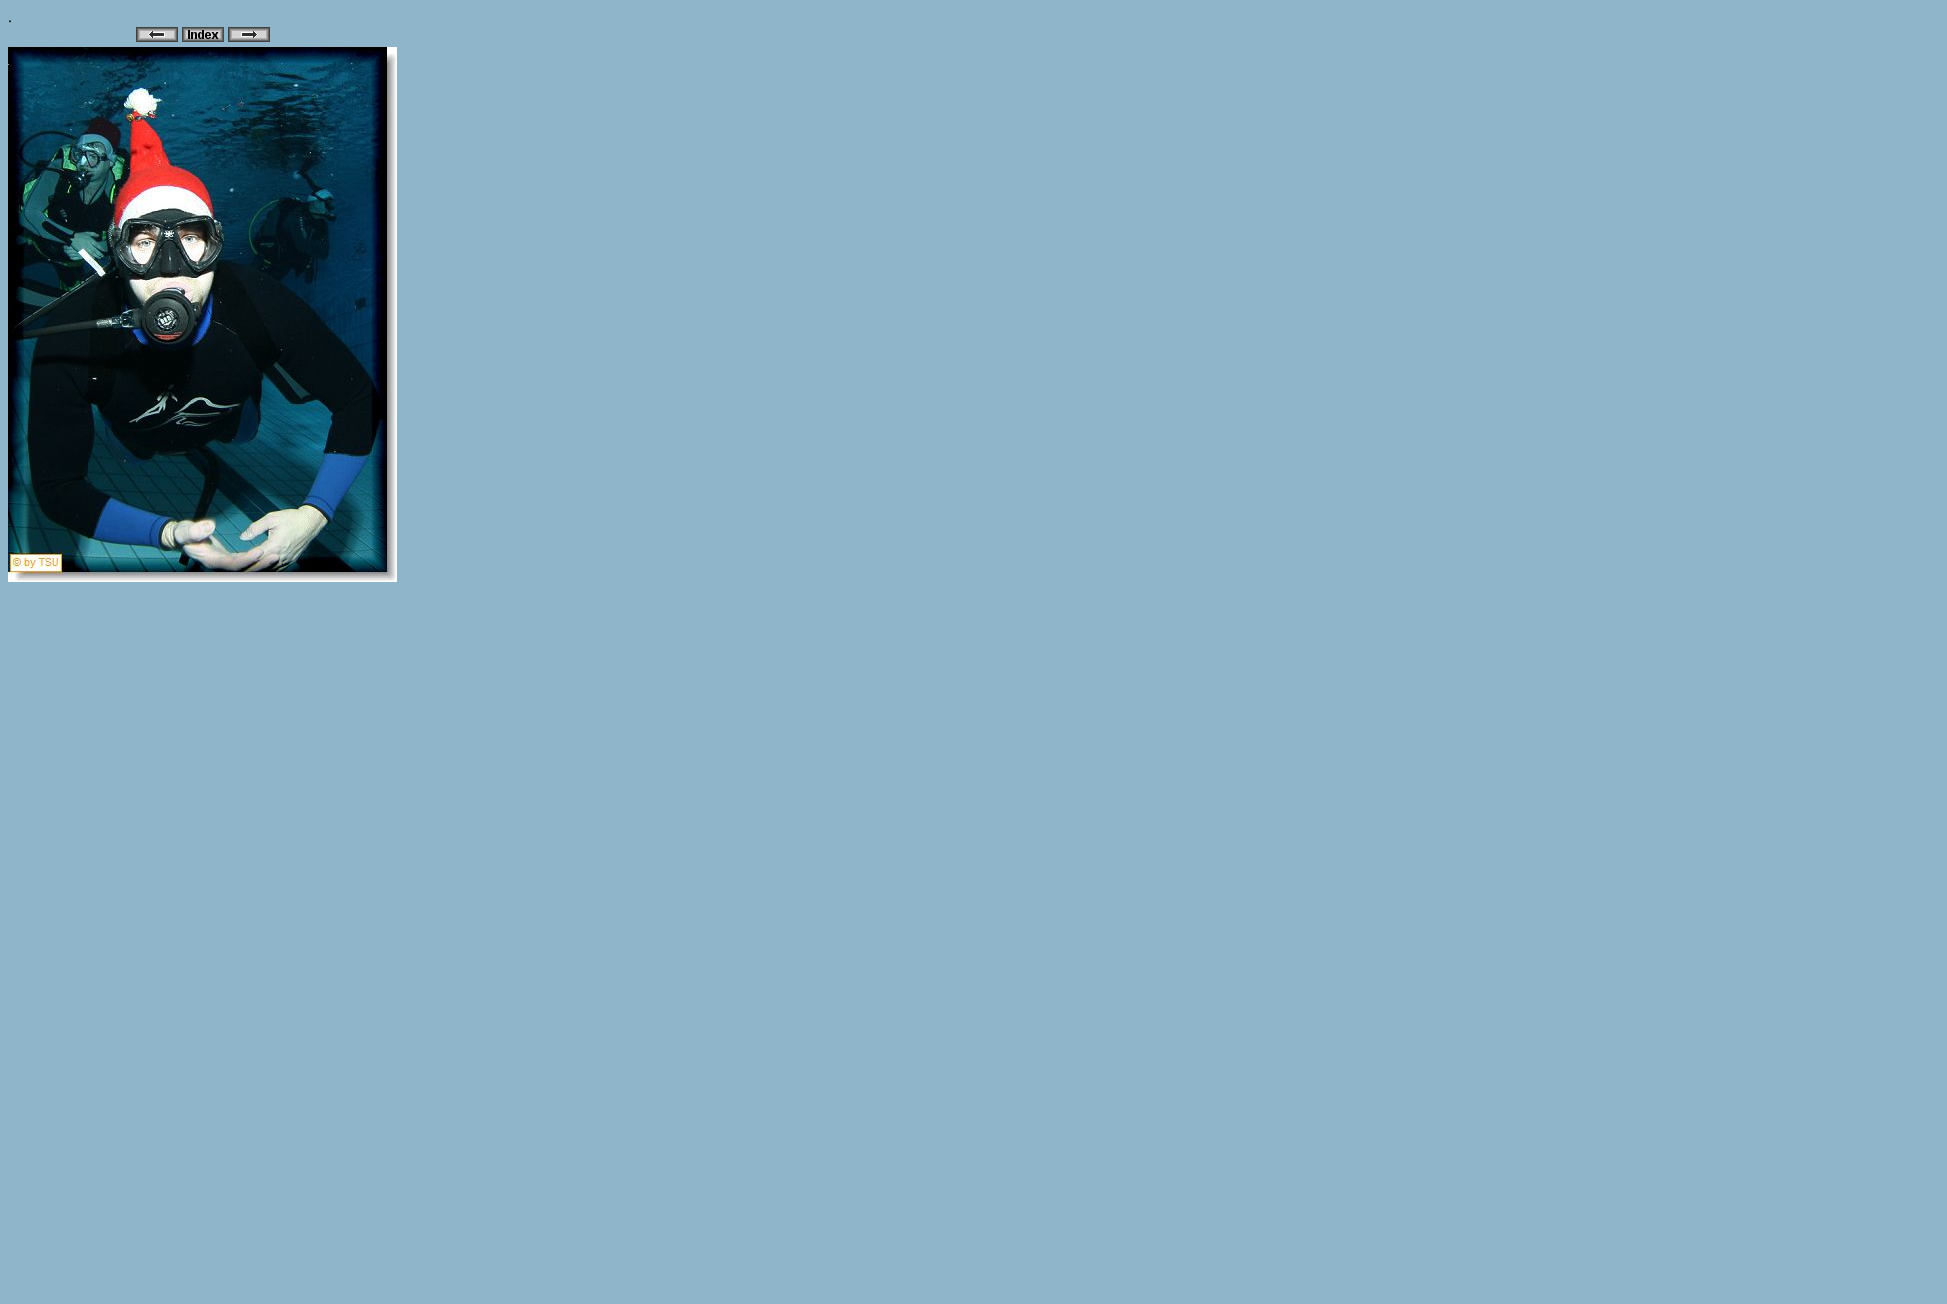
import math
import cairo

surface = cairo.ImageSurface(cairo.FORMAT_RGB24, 1947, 1304)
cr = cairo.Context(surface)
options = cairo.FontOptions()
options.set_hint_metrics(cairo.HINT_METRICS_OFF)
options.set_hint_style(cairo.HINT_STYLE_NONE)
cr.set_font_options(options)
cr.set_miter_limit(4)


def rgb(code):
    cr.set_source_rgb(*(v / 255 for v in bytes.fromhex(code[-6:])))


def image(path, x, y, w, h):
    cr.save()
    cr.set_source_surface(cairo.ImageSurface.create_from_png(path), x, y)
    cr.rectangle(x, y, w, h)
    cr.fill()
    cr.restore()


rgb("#8fb5ca")
cr.paint()
image("img/1.png", 136, 27, 42, 15)
image("img/2.png", 182, 27, 42, 15)
image("img/3.png", 228, 27, 42, 15)
image("img/4.png", 8, 47, 389, 535)
cr.select_font_face("Liberation Serif")
cr.set_font_size(16)
rgb("#000000")
cr.move_to(8, 22)
cr.show_text(".")
surface.write_to_png("page.png")
